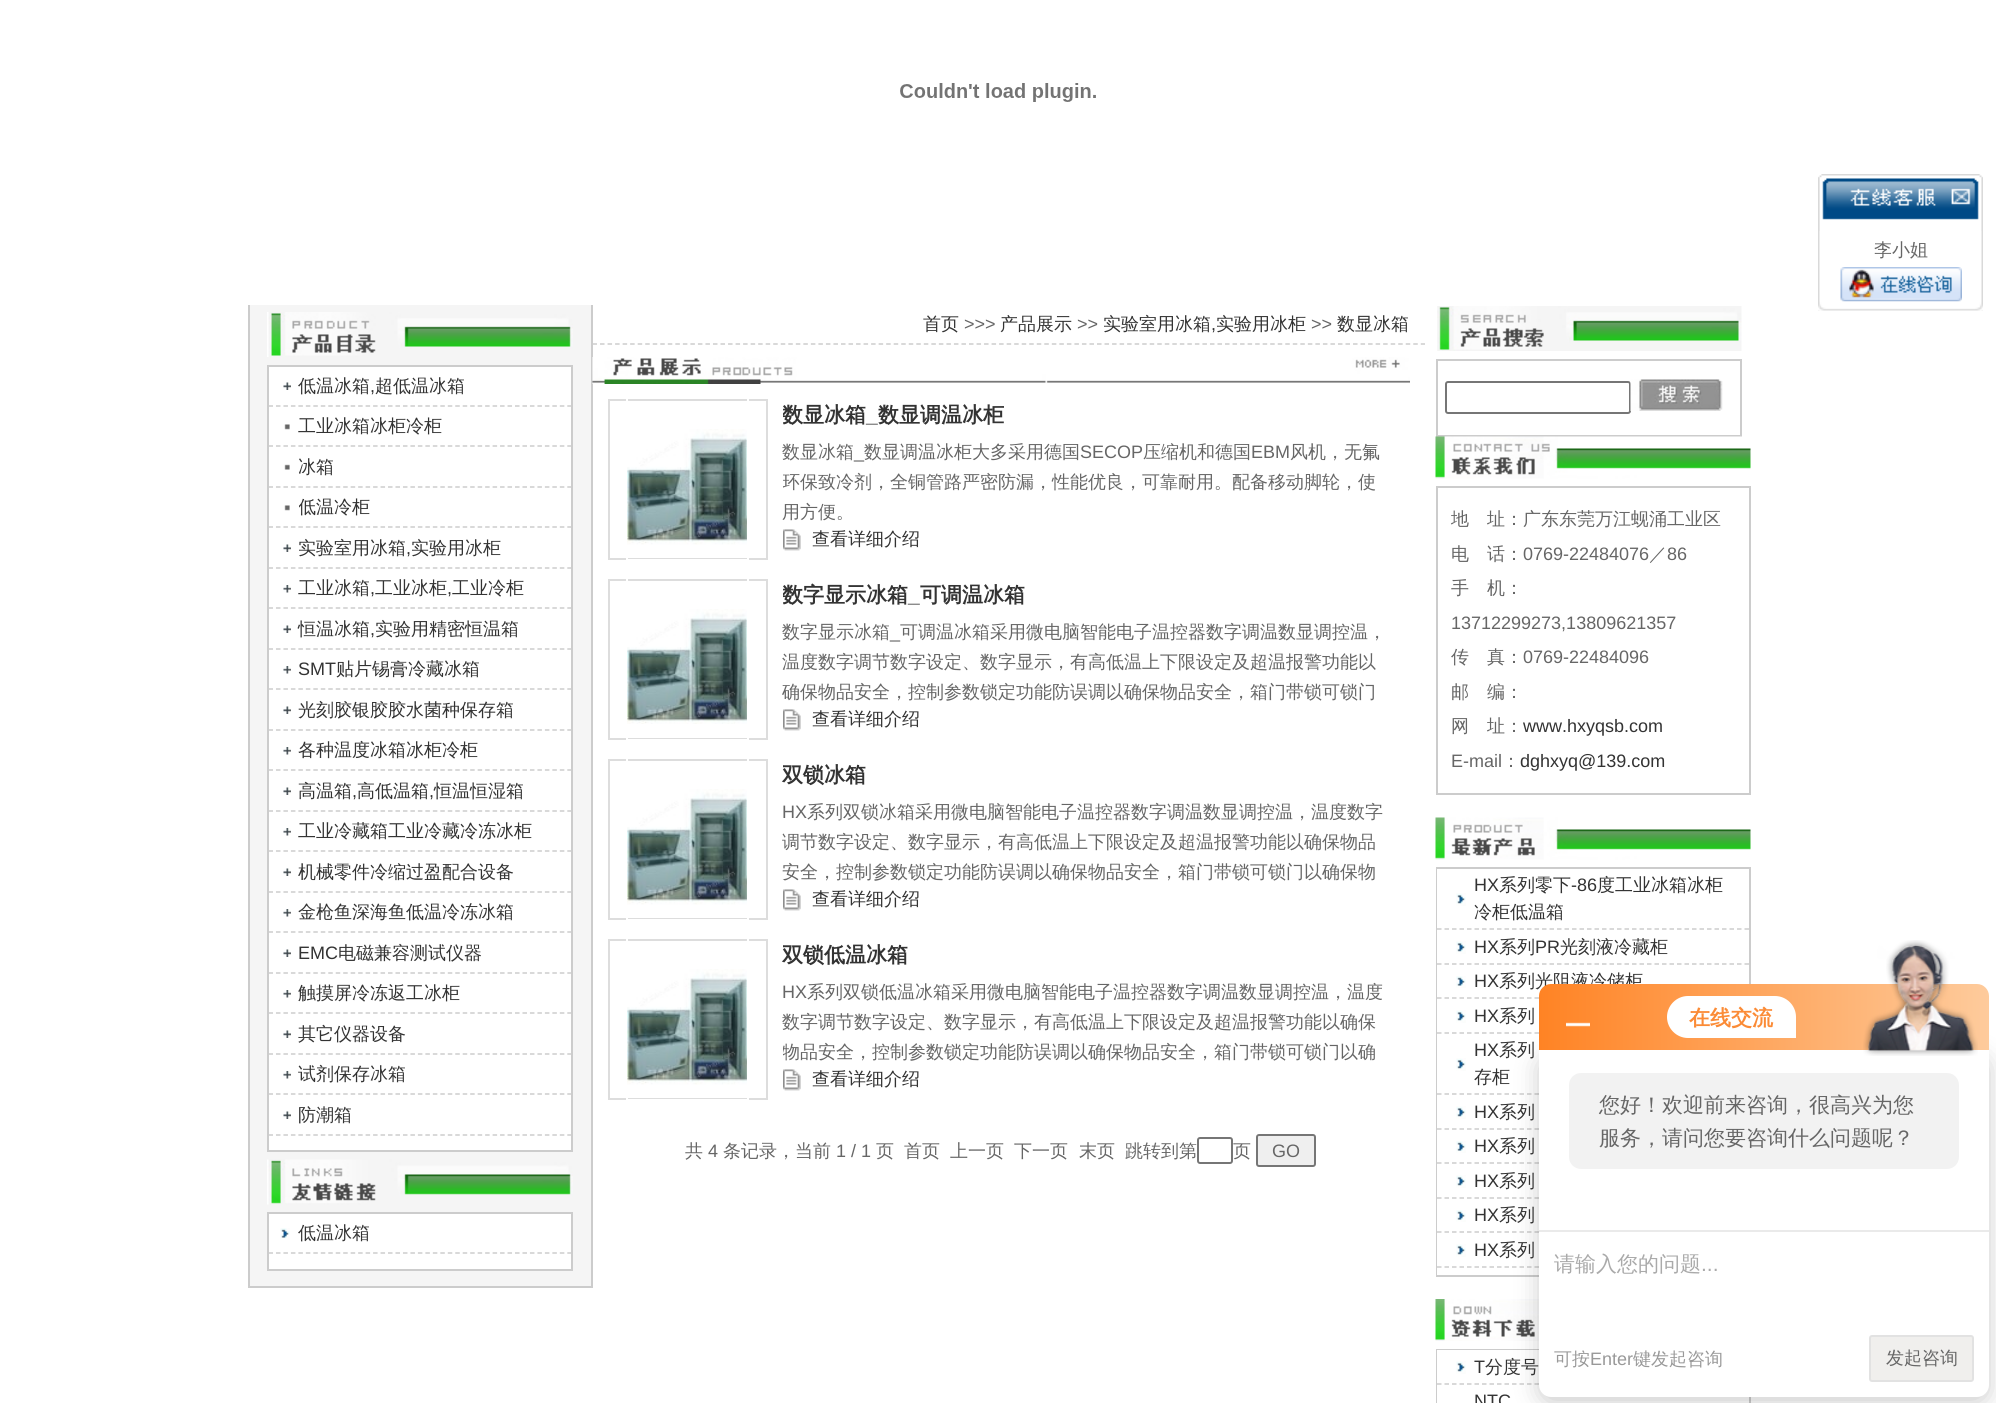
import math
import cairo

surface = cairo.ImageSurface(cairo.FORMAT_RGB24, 1996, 1403)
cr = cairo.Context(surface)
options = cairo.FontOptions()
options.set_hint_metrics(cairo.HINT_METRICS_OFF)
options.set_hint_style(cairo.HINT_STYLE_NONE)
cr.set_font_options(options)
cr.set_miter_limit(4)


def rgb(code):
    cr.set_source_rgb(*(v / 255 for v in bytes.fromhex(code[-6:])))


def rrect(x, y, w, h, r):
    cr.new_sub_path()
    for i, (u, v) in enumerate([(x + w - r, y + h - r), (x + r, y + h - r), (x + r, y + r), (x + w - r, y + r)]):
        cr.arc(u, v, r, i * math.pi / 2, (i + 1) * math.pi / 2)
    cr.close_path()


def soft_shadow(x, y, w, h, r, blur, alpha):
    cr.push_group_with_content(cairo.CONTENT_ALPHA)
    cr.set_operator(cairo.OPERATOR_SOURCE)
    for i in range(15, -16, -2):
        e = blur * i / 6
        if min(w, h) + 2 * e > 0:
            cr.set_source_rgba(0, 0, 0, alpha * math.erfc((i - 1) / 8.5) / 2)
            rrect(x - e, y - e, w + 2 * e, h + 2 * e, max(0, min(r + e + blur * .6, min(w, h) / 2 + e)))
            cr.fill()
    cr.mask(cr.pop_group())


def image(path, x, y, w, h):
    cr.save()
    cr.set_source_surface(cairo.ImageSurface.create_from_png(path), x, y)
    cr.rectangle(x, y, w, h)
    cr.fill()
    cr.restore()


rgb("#ffffff")
cr.paint()
image("img/1.png", 900, 83, 196, 19)
image("img/2.png", 1818, 231, 165, 80)
image("img/3.png", 1818, 174, 165, 57)
image("img/4.png", 1840, 267, 122, 35)
image("img/5.png", 1818, 301, 165, 10)
for x, y, w, h, color in [
    (250, 305, 341, 981, "#f5f5f5"),
    (591, 305, 2, 982, "#cccccc"),
    (248, 1286, 345, 2, "#cccccc"),
    (248, 305, 2, 982, "#cccccc"),
]:
    rgb(color)
    cr.rectangle(x, y, w, h)
    cr.fill()
image("img/6.png", 267, 312, 306, 45)
rgb("#ffffff")
cr.rectangle(268, 366, 304, 785)
cr.fill_preserve()
rgb("#cccccc")
cr.stroke()
image("img/7.png", 283, 382, 8, 8)
cr.new_path()
cr.move_to(268.5, 406)
cr.line_to(571.5, 406)
cr.set_line_width(1.5)
cr.set_dash([4.5, 2.97])
cr.stroke()
image("img/8.png", 284, 424, 6, 6)
cr.new_path()
cr.move_to(268.5, 446)
cr.line_to(571.5, 446)
cr.stroke()
image("img/9.png", 284, 464, 6, 6)
cr.new_path()
cr.move_to(268.5, 487)
cr.line_to(571.5, 487)
cr.stroke()
image("img/8.png", 284, 505, 6, 6)
cr.new_path()
cr.move_to(268.5, 527)
cr.line_to(571.5, 527)
cr.stroke()
image("img/7.png", 283, 544, 8, 8)
cr.new_path()
cr.move_to(268.5, 568)
cr.line_to(571.5, 568)
cr.stroke()
image("img/10.png", 283, 585, 8, 8)
cr.new_path()
cr.move_to(268.5, 608)
cr.line_to(571.5, 608)
cr.stroke()
image("img/7.png", 283, 625, 8, 8)
cr.new_path()
cr.move_to(268.5, 649)
cr.line_to(571.5, 649)
cr.stroke()
image("img/10.png", 283, 666, 8, 8)
cr.new_path()
cr.move_to(268.5, 689)
cr.line_to(571.5, 689)
cr.stroke()
image("img/7.png", 283, 706, 8, 8)
cr.new_path()
cr.move_to(268.5, 730)
cr.line_to(571.5, 730)
cr.stroke()
image("img/10.png", 283, 747, 8, 8)
cr.new_path()
cr.move_to(268.5, 770)
cr.line_to(571.5, 770)
cr.stroke()
image("img/7.png", 283, 787, 8, 8)
cr.new_path()
cr.move_to(268.5, 811)
cr.line_to(571.5, 811)
cr.stroke()
image("img/10.png", 283, 828, 8, 8)
cr.new_path()
cr.move_to(268.5, 851)
cr.line_to(571.5, 851)
cr.stroke()
image("img/7.png", 283, 868, 8, 8)
cr.new_path()
cr.move_to(268.5, 892)
cr.line_to(571.5, 892)
cr.stroke()
image("img/10.png", 283, 909, 8, 8)
cr.new_path()
cr.move_to(268.5, 932)
cr.line_to(571.5, 932)
cr.stroke()
image("img/7.png", 283, 949, 8, 8)
cr.new_path()
cr.move_to(268.5, 973)
cr.line_to(571.5, 973)
cr.stroke()
image("img/10.png", 283, 990, 8, 8)
cr.new_path()
cr.move_to(268.5, 1013)
cr.line_to(571.5, 1013)
cr.stroke()
image("img/7.png", 283, 1030, 8, 8)
cr.new_path()
cr.move_to(268.5, 1054)
cr.line_to(571.5, 1054)
cr.stroke()
image("img/10.png", 283, 1071, 8, 8)
cr.new_path()
cr.move_to(268.5, 1094)
cr.line_to(571.5, 1094)
cr.stroke()
image("img/7.png", 283, 1111, 8, 8)
cr.new_path()
cr.move_to(268.5, 1135)
cr.line_to(571.5, 1135)
cr.stroke()
image("img/11.png", 267, 1159, 306, 46)
rgb("#ffffff")
cr.rectangle(268, 1213, 304, 57)
cr.fill_preserve()
rgb("#cccccc")
cr.set_line_width(2)
cr.set_dash([])
cr.stroke()
image("img/12.png", 280, 1228, 10, 12)
cr.new_path()
cr.move_to(268.5, 1253)
cr.line_to(571.5, 1253)
cr.set_line_width(1.5)
cr.set_dash([4.5, 2.97])
cr.stroke()
cr.new_path()
cr.move_to(592.5, 344)
cr.line_to(1425, 344)
cr.set_dash([4.5, 3.03])
cr.stroke()
image("img/13.png", 592, 357, 818, 27)
cr.rectangle(609, 400, 158, 159)
rgb("#dddddd")
cr.set_line_width(2)
cr.set_dash([])
cr.stroke()
cr.rectangle(627, 391, 121, 169)
rgb("#ffffff")
cr.stroke()
image("img/14.png", 627, 429, 120, 116)
image("img/15.png", 783, 529, 18, 22)
cr.rectangle(609, 580, 158, 159)
rgb("#dddddd")
cr.stroke()
cr.rectangle(627, 571, 121, 169)
rgb("#ffffff")
cr.stroke()
image("img/16.png", 627, 609, 120, 115)
image("img/15.png", 783, 709, 18, 22)
cr.rectangle(609, 760, 158, 159)
rgb("#dddddd")
cr.stroke()
cr.rectangle(627, 751, 121, 169)
rgb("#ffffff")
cr.stroke()
image("img/17.png", 627, 789, 120, 116)
image("img/15.png", 783, 889, 18, 22)
cr.rectangle(609, 940, 158, 159)
rgb("#dddddd")
cr.stroke()
cr.rectangle(627, 931, 121, 169)
rgb("#ffffff")
cr.stroke()
image("img/18.png", 627, 969, 120, 116)
image("img/15.png", 783, 1069, 18, 22)
rrect(1198, 1138, 34, 25, 2)
rgb("#767676")
cr.stroke()
rgb("#efefef")
rrect(1257, 1135, 58, 31, 2)
cr.fill_preserve()
rgb("#767676")
cr.stroke()
image("img/19.png", 1437, 306, 305, 45)
cr.rectangle(1437, 360, 304, 76)
rgb("#cccccc")
cr.stroke()
rrect(1446, 382, 184, 31, 2)
rgb("#767676")
cr.stroke()
image("img/20.png", 1630, 379, 93, 32)
image("img/21.png", 1435, 436, 316, 43)
cr.rectangle(1437, 487, 313, 307)
rgb("#cccccc")
cr.stroke()
image("img/22.png", 1435, 817, 316, 43)
cr.rectangle(1437, 868, 313, 408)
cr.stroke()
rgb("#ffffff")
cr.rectangle(1437, 869, 1, 406)
cr.fill()
image("img/23.png", 1456, 893, 10, 13)
cr.new_path()
cr.move_to(1437, 929)
cr.line_to(1749, 929)
rgb("#cccccc")
cr.set_line_width(1.5)
cr.set_dash([4.5, 3])
cr.stroke()
image("img/23.png", 1456, 941, 10, 13)
cr.new_path()
cr.move_to(1437, 964)
cr.line_to(1749, 964)
cr.stroke()
image("img/24.png", 1456, 976, 10, 12)
cr.new_path()
cr.move_to(1437, 998)
cr.line_to(1749, 998)
cr.stroke()
image("img/23.png", 1456, 1010, 10, 13)
cr.new_path()
cr.move_to(1437, 1033)
cr.line_to(1749, 1033)
cr.stroke()
image("img/23.png", 1456, 1058, 10, 13)
cr.new_path()
cr.move_to(1437, 1094)
cr.line_to(1749, 1094)
cr.stroke()
image("img/23.png", 1456, 1106, 10, 13)
cr.new_path()
cr.move_to(1437, 1129)
cr.line_to(1749, 1129)
cr.stroke()
image("img/24.png", 1456, 1141, 10, 12)
cr.new_path()
cr.move_to(1437, 1163)
cr.line_to(1749, 1163)
cr.stroke()
image("img/23.png", 1456, 1175, 10, 13)
cr.new_path()
cr.move_to(1437, 1198)
cr.line_to(1749, 1198)
cr.stroke()
image("img/24.png", 1456, 1210, 10, 12)
cr.new_path()
cr.move_to(1437, 1232)
cr.line_to(1749, 1232)
cr.stroke()
image("img/23.png", 1456, 1244, 10, 13)
cr.new_path()
cr.move_to(1437, 1267)
cr.line_to(1749, 1267)
cr.stroke()
image("img/25.png", 1435, 1299, 104, 42)
cr.rectangle(1437, 1350, 313, 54)
cr.set_line_width(2)
cr.set_dash([])
cr.stroke()
rgb("#ffffff")
cr.rectangle(1437, 1350, 312, 53)
cr.fill()
image("img/23.png", 1456, 1361, 10, 13)
cr.new_path()
cr.move_to(1437, 1384)
cr.line_to(1749, 1384)
rgb("#cccccc")
cr.set_line_width(1.5)
cr.set_dash([4.5, 3])
cr.stroke()
rgb("#000000")
soft_shadow(1539, 1056, 450, 347, 12, 12, 0.2)
rgb("#ffffff")
cr.new_path()
cr.move_to(1539, 1050)
cr.line_to(1989, 1050)
cr.line_to(1989, 1385)
cr.curve_to(1989, 1391.5, 1983.5, 1397, 1977, 1397)
cr.line_to(1551, 1397)
cr.curve_to(1544.5, 1397, 1539, 1391.5, 1539, 1385)
cr.close_path()
cr.fill()
rgb("#f2f2f2")
rrect(1569, 1073, 390, 96, 12)
cr.fill()
rgb("#eaeaea")
cr.rectangle(1539, 1230, 450, 2)
cr.fill()
rgb("#f0efed")
rrect(1870, 1336, 103, 45, 2)
cr.fill_preserve()
rgb("#e2e2e2")
cr.set_line_width(2)
cr.set_dash([])
cr.stroke()
cr.select_font_face("WenQuanYi Zen Hei Medium")
cr.set_font_size(18)
rgb("#666666")
cr.move_to(1874, 256)
cr.show_text("李小姐")
rgb("#333333")
cr.move_to(298, 392)
cr.show_text("低温冰箱")
cr.select_font_face("Liberation Sans")
cr.move_to(370, 392)
cr.show_text(",")
cr.select_font_face("WenQuanYi Zen Hei Medium")
cr.move_to(375, 392)
cr.show_text("超低温冰箱")
cr.move_to(298, 432)
cr.show_text("工业冰箱冰柜冷柜")
cr.save()
cr.rectangle(299, 447, 255, 39)
cr.clip()
cr.move_to(298, 473)
cr.show_text("冰箱")
cr.restore()
cr.save()
cr.rectangle(299, 488, 255, 39)
cr.clip()
cr.move_to(298, 513)
cr.show_text("低温冷柜")
cr.restore()
cr.move_to(298, 554)
cr.show_text("实验室用冰箱")
cr.select_font_face("Liberation Sans")
cr.move_to(406, 554)
cr.show_text(",")
cr.select_font_face("WenQuanYi Zen Hei Medium")
cr.move_to(411, 554)
cr.show_text("实验用冰柜")
cr.move_to(298, 594)
cr.show_text("工业冰箱")
cr.select_font_face("Liberation Sans")
cr.move_to(370, 594)
cr.show_text(",")
cr.select_font_face("WenQuanYi Zen Hei Medium")
cr.move_to(375, 594)
cr.show_text("工业冰柜")
cr.select_font_face("Liberation Sans")
cr.move_to(447, 594)
cr.show_text(",")
cr.select_font_face("WenQuanYi Zen Hei Medium")
cr.move_to(452, 594)
cr.show_text("工业冷柜")
cr.move_to(298, 635)
cr.show_text("恒温冰箱")
cr.select_font_face("Liberation Sans")
cr.move_to(370, 635)
cr.show_text(",")
cr.select_font_face("WenQuanYi Zen Hei Medium")
cr.move_to(375, 635)
cr.show_text("实验用精密恒温箱")
cr.select_font_face("Liberation Sans")
cr.move_to(298, 675)
cr.show_text("SMT")
cr.select_font_face("WenQuanYi Zen Hei Medium")
for x, y, s in [
    (336, 675, "贴片锡膏冷藏冰箱"),
    (298, 716, "光刻胶银胶胶水菌种保存箱"),
    (298, 756, "各种温度冰箱冰柜冷柜"),
    (298, 797, "高温箱"),
]:
    cr.move_to(x, y)
    cr.show_text(s)
cr.select_font_face("Liberation Sans")
cr.move_to(352, 797)
cr.show_text(",")
cr.select_font_face("WenQuanYi Zen Hei Medium")
cr.move_to(357, 797)
cr.show_text("高低温箱")
cr.select_font_face("Liberation Sans")
cr.move_to(429, 797)
cr.show_text(",")
cr.select_font_face("WenQuanYi Zen Hei Medium")
for x, y, s in [
    (434, 797, "恒温恒湿箱"),
    (298, 837, "工业冷藏箱工业冷藏冷冻冰柜"),
    (298, 878, "机械零件冷缩过盈配合设备"),
    (298, 918, "金枪鱼深海鱼低温冷冻冰箱"),
]:
    cr.move_to(x, y)
    cr.show_text(s)
cr.select_font_face("Liberation Sans")
cr.move_to(298, 959)
cr.show_text("EMC")
cr.select_font_face("WenQuanYi Zen Hei Medium")
for x, y, s in [
    (338, 959, "电磁兼容测试仪器"),
    (298, 999, "触摸屏冷冻返工冰柜"),
    (298, 1040, "其它仪器设备"),
    (298, 1080, "试剂保存冰箱"),
    (298, 1121, "防潮箱"),
    (298, 1239, "低温冰箱"),
    (923, 330, "首页"),
]:
    cr.move_to(x, y)
    cr.show_text(s)
cr.select_font_face("Liberation Sans")
rgb("#666666")
cr.move_to(964, 330)
cr.show_text(">>>")
cr.select_font_face("WenQuanYi Zen Hei Medium")
rgb("#333333")
cr.move_to(1000, 330)
cr.show_text("产品展示")
cr.select_font_face("Liberation Sans")
rgb("#666666")
cr.move_to(1077, 330)
cr.show_text(">>")
cr.select_font_face("WenQuanYi Zen Hei Medium")
rgb("#333333")
cr.move_to(1103, 330)
cr.show_text("实验室用冰箱")
cr.move_to(1216, 330)
cr.show_text("实验用冰柜")
cr.select_font_face("Liberation Sans")
rgb("#666666")
cr.move_to(1311, 330)
cr.show_text(">>")
cr.select_font_face("WenQuanYi Zen Hei Medium")
rgb("#333333")
cr.move_to(1337, 330)
cr.show_text("数显冰箱")
cr.select_font_face("Liberation Sans")
cr.move_to(1211, 330)
cr.show_text(",")
cr.save()
cr.rectangle(783, 399, 608, 30)
cr.clip()
cr.select_font_face("WenQuanYi Zen Hei", cairo.FONT_SLANT_NORMAL, cairo.FONT_WEIGHT_BOLD)
cr.set_font_size(21)
cr.move_to(782, 422)
cr.show_text("数显冰箱")
cr.restore()
cr.select_font_face("Liberation Sans", cairo.FONT_SLANT_NORMAL, cairo.FONT_WEIGHT_BOLD)
cr.set_font_size(21)
cr.move_to(866, 422)
cr.show_text("_")
cr.select_font_face("WenQuanYi Zen Hei", cairo.FONT_SLANT_NORMAL, cairo.FONT_WEIGHT_BOLD)
cr.move_to(878, 422)
cr.show_text("数显调温冰柜")
cr.select_font_face("WenQuanYi Zen Hei Medium")
cr.set_font_size(18)
rgb("#666666")
cr.move_to(782, 458)
cr.show_text("数显冰箱")
cr.select_font_face("Liberation Sans")
cr.move_to(1080, 458)
cr.show_text("SECOP")
cr.select_font_face("WenQuanYi Zen Hei Medium")
cr.move_to(1143, 458)
cr.show_text("压缩机和德国")
cr.select_font_face("Liberation Sans")
cr.move_to(1251, 458)
cr.show_text("EBM")
cr.select_font_face("WenQuanYi Zen Hei Medium")
cr.move_to(1290, 458)
cr.show_text("风机，无氟")
cr.select_font_face("Liberation Sans")
cr.move_to(854, 458)
cr.show_text("_")
cr.select_font_face("WenQuanYi Zen Hei Medium")
cr.move_to(864, 458)
cr.show_text("数显调温冰柜大多采用德国")
cr.save()
cr.rectangle(783, 437, 608, 90)
cr.clip()
cr.move_to(782, 488)
cr.show_text("环保致冷剂，全铜管路严密防漏，性能优良，可靠耐用。配备移动脚轮，使")
cr.restore()
cr.move_to(782, 518)
cr.show_text("用方便。")
rgb("#333333")
cr.move_to(812, 545)
cr.show_text("查看详细介绍")
cr.save()
cr.rectangle(783, 579, 608, 30)
cr.clip()
cr.select_font_face("WenQuanYi Zen Hei", cairo.FONT_SLANT_NORMAL, cairo.FONT_WEIGHT_BOLD)
cr.set_font_size(21)
cr.move_to(782, 602)
cr.show_text("数字显示冰箱")
cr.restore()
cr.select_font_face("Liberation Sans", cairo.FONT_SLANT_NORMAL, cairo.FONT_WEIGHT_BOLD)
cr.set_font_size(21)
cr.move_to(908, 602)
cr.show_text("_")
cr.select_font_face("WenQuanYi Zen Hei", cairo.FONT_SLANT_NORMAL, cairo.FONT_WEIGHT_BOLD)
cr.move_to(920, 602)
cr.show_text("可调温冰箱")
cr.select_font_face("WenQuanYi Zen Hei Medium")
cr.set_font_size(18)
rgb("#666666")
cr.move_to(782, 638)
cr.show_text("数字显示冰箱")
cr.select_font_face("Liberation Sans")
cr.move_to(890, 638)
cr.show_text("_")
cr.select_font_face("WenQuanYi Zen Hei Medium")
for x, y, s in [
    (900, 638, "可调温冰箱采用微电脑智能电子温控器数字调温数显调控温，"),
    (782, 668, "温度数字调节数字设定、数字显示，有高低温上下限设定及超温报警功能以"),
    (782, 698, "确保物品安全，控制参数锁定功能防误调以确保物品安全，箱门带锁可锁门"),
]:
    cr.move_to(x, y)
    cr.show_text(s)
rgb("#333333")
cr.move_to(812, 725)
cr.show_text("查看详细介绍")
cr.select_font_face("WenQuanYi Zen Hei", cairo.FONT_SLANT_NORMAL, cairo.FONT_WEIGHT_BOLD)
cr.set_font_size(21)
cr.move_to(782, 782)
cr.show_text("双锁冰箱")
cr.select_font_face("Liberation Sans")
cr.set_font_size(18)
rgb("#666666")
cr.move_to(782, 818)
cr.show_text("HX")
cr.select_font_face("WenQuanYi Zen Hei Medium")
for x, y, s in [
    (807, 818, "系列双锁冰箱采用微电脑智能电子温控器数字调温数显调控温，温度数字"),
    (782, 848, "调节数字设定、数字显示，有高低温上下限设定及超温报警功能以确保物品"),
    (782, 878, "安全，控制参数锁定功能防误调以确保物品安全，箱门带锁可锁门以确保物"),
]:
    cr.move_to(x, y)
    cr.show_text(s)
rgb("#333333")
cr.move_to(812, 905)
cr.show_text("查看详细介绍")
cr.select_font_face("WenQuanYi Zen Hei", cairo.FONT_SLANT_NORMAL, cairo.FONT_WEIGHT_BOLD)
cr.set_font_size(21)
cr.move_to(782, 962)
cr.show_text("双锁低温冰箱")
cr.select_font_face("Liberation Sans")
cr.set_font_size(18)
rgb("#666666")
cr.move_to(782, 998)
cr.show_text("HX")
cr.select_font_face("WenQuanYi Zen Hei Medium")
cr.move_to(807, 998)
cr.show_text("系列双锁低温冰箱采用微电脑智能电子温控器数字调温数显调控温，温度")
cr.move_to(782, 1028)
cr.show_text("数字调节数字设定、数字显示，有高低温上下限设定及超温报警功能以确保")
cr.save()
cr.rectangle(783, 977, 608, 90)
cr.clip()
cr.move_to(782, 1058)
cr.show_text("物品安全，控制参数锁定功能防误调以确保物品安全，箱门带锁可锁门以确")
cr.restore()
rgb("#333333")
cr.move_to(812, 1085)
cr.show_text("查看详细介绍")
rgb("#666666")
cr.move_to(685, 1157)
cr.show_text("共")
cr.select_font_face("Liberation Sans")
cr.move_to(708, 1157)
cr.show_text("4")
cr.select_font_face("WenQuanYi Zen Hei Medium")
cr.move_to(723, 1157)
cr.show_text("条记录，当前")
cr.select_font_face("Liberation Sans")
cr.move_to(836, 1157)
cr.show_text("1 / 1")
cr.select_font_face("WenQuanYi Zen Hei Medium")
for x, y, s in [
    (876, 1157, "页"),
    (904, 1157, "首页"),
    (950, 1157, "上一页"),
    (1014, 1157, "下一页"),
    (1079, 1157, "末页"),
    (1125, 1157, "跳转到第"),
    (1233, 1157, "页"),
]:
    cr.move_to(x, y)
    cr.show_text(s)
cr.select_font_face("Liberation Sans")
cr.move_to(1272, 1157)
cr.show_text("GO")
cr.select_font_face("WenQuanYi Zen Hei Medium")
cr.move_to(1451, 525)
cr.show_text("地　址：广东东莞万江蚬涌工业区")
cr.move_to(1451, 560)
cr.show_text("电　话：")
cr.select_font_face("Liberation Sans")
cr.move_to(1523, 560)
cr.show_text("0769-22484076")
cr.select_font_face("WenQuanYi Zen Hei Medium")
cr.move_to(1649, 560)
cr.show_text("／")
cr.select_font_face("Liberation Sans")
cr.move_to(1667, 560)
cr.show_text("86")
cr.select_font_face("WenQuanYi Zen Hei Medium")
cr.move_to(1451, 594)
cr.show_text("手　机：")
cr.select_font_face("Liberation Sans")
cr.move_to(1451, 629)
cr.show_text("13712299273,13809621357")
cr.select_font_face("WenQuanYi Zen Hei Medium")
cr.move_to(1451, 663)
cr.show_text("传　真：")
cr.select_font_face("Liberation Sans")
cr.move_to(1523, 663)
cr.show_text("0769-22484096")
cr.select_font_face("WenQuanYi Zen Hei Medium")
cr.move_to(1451, 698)
cr.show_text("邮　编：")
cr.move_to(1451, 732)
cr.show_text("网　址：")
cr.select_font_face("Liberation Sans")
rgb("#333333")
cr.move_to(1523, 732)
cr.show_text("www.hxyqsb.com")
rgb("#666666")
cr.move_to(1451, 767)
cr.show_text("E-mail")
cr.select_font_face("WenQuanYi Zen Hei Medium")
cr.move_to(1502, 767)
cr.show_text("：")
cr.select_font_face("Liberation Sans")
rgb("#333333")
cr.move_to(1520, 767)
cr.show_text("dghxyq@139.com")
cr.move_to(1474, 891)
cr.show_text("HX")
cr.select_font_face("WenQuanYi Zen Hei Medium")
cr.move_to(1499, 891)
cr.show_text("系列零下")
cr.select_font_face("Liberation Sans")
cr.move_to(1571, 891)
cr.show_text("-86")
cr.select_font_face("WenQuanYi Zen Hei Medium")
cr.move_to(1597, 891)
cr.show_text("度工业冰箱冰柜")
cr.move_to(1474, 918)
cr.show_text("冷柜低温箱")
cr.select_font_face("Liberation Sans")
cr.move_to(1474, 953)
cr.show_text("HX")
cr.select_font_face("WenQuanYi Zen Hei Medium")
cr.move_to(1499, 953)
cr.show_text("系列")
cr.select_font_face("Liberation Sans")
cr.move_to(1535, 953)
cr.show_text("PR")
cr.select_font_face("WenQuanYi Zen Hei Medium")
cr.move_to(1560, 953)
cr.show_text("光刻液冷藏柜")
cr.select_font_face("Liberation Sans")
cr.move_to(1474, 987)
cr.show_text("HX")
cr.select_font_face("WenQuanYi Zen Hei Medium")
cr.move_to(1499, 987)
cr.show_text("系列光阻液冷储柜")
cr.select_font_face("Liberation Sans")
cr.move_to(1474, 1022)
cr.show_text("HX")
cr.select_font_face("WenQuanYi Zen Hei Medium")
cr.move_to(1499, 1022)
cr.show_text("系列")
cr.select_font_face("Liberation Sans")
cr.move_to(1474, 1056)
cr.show_text("HX")
cr.select_font_face("WenQuanYi Zen Hei Medium")
cr.move_to(1499, 1056)
cr.show_text("系列")
cr.move_to(1474, 1083)
cr.show_text("存柜")
cr.select_font_face("Liberation Sans")
cr.move_to(1474, 1118)
cr.show_text("HX")
cr.select_font_face("WenQuanYi Zen Hei Medium")
cr.move_to(1499, 1118)
cr.show_text("系列")
cr.select_font_face("Liberation Sans")
cr.move_to(1474, 1152)
cr.show_text("HX")
cr.select_font_face("WenQuanYi Zen Hei Medium")
cr.move_to(1499, 1152)
cr.show_text("系列")
cr.select_font_face("Liberation Sans")
cr.move_to(1474, 1187)
cr.show_text("HX")
cr.select_font_face("WenQuanYi Zen Hei Medium")
cr.move_to(1499, 1187)
cr.show_text("系列")
cr.select_font_face("Liberation Sans")
cr.move_to(1474, 1221)
cr.show_text("HX")
cr.select_font_face("WenQuanYi Zen Hei Medium")
cr.move_to(1499, 1221)
cr.show_text("系列")
cr.select_font_face("Liberation Sans")
cr.move_to(1474, 1256)
cr.show_text("HX")
cr.select_font_face("WenQuanYi Zen Hei Medium")
cr.move_to(1499, 1256)
cr.show_text("系列")
cr.select_font_face("Liberation Sans")
cr.move_to(1474, 1373)
cr.show_text("T")
cr.select_font_face("WenQuanYi Zen Hei Medium")
cr.move_to(1485, 1373)
cr.show_text("分度号")
cr.select_font_face("Liberation Sans")
cr.move_to(1474, 1407)
cr.show_text("NTC")
gradient = cairo.LinearGradient(1539, 1017, 1989, 1017)
gradient.add_color_stop_rgba(0, 1, 0.514, 0.141, 1)
gradient.add_color_stop_rgba(1, 0.996, 0.796, 0.612, 1)
cr.set_source(gradient)
cr.new_path()
cr.move_to(1551, 984)
cr.line_to(1977, 984)
cr.curve_to(1983.5, 984, 1989, 989.5, 1989, 996)
cr.line_to(1989, 1050)
cr.line_to(1539, 1050)
cr.line_to(1539, 996)
cr.curve_to(1539, 989.5, 1544.5, 984, 1551, 984)
cr.close_path()
cr.fill()
image("img/26.png", 1566, 1022, 24, 5)
rgb("#ffffff")
cr.new_path()
cr.move_to(1688, 996)
cr.line_to(1775, 996)
cr.curve_to(1786.5, 996, 1796, 1005.5, 1796, 1017)
cr.line_to(1796, 1038)
cr.line_to(1688, 1038)
cr.curve_to(1676.5, 1038, 1667, 1028.5, 1667, 1017)
cr.curve_to(1667, 1005.5, 1676.5, 996, 1688, 996)
cr.close_path()
cr.fill()
cr.select_font_face("WenQuanYi Zen Hei", cairo.FONT_SLANT_NORMAL, cairo.FONT_WEIGHT_BOLD)
cr.set_font_size(21)
rgb("#fb8b36")
cr.move_to(1689, 1025)
cr.show_text("在线交流")
image("img/27.png", 1863, 940, 115, 116)
cr.select_font_face("WenQuanYi Zen Hei Medium")
rgb("#666666")
cr.move_to(1599, 1112)
cr.show_text("您好！欢迎前来咨询，很高兴为您")
cr.move_to(1599, 1145)
cr.show_text("服务，请问您要咨询什么问题呢？")
rgb("#aaaaaa")
cr.move_to(1554, 1271)
cr.show_text("请输入您的问题")
cr.select_font_face("Liberation Sans")
cr.move_to(1701, 1271)
cr.show_text("...")
cr.select_font_face("WenQuanYi Zen Hei Medium")
cr.set_font_size(18)
rgb("#999999")
cr.move_to(1554, 1365)
cr.show_text("可按")
cr.select_font_face("Liberation Sans")
cr.move_to(1590, 1365)
cr.show_text("Enter")
cr.select_font_face("WenQuanYi Zen Hei Medium")
cr.move_to(1633, 1365)
cr.show_text("键发起咨询")
rgb("#666666")
cr.move_to(1886, 1364)
cr.show_text("发起咨询")
surface.write_to_png("page.png")
